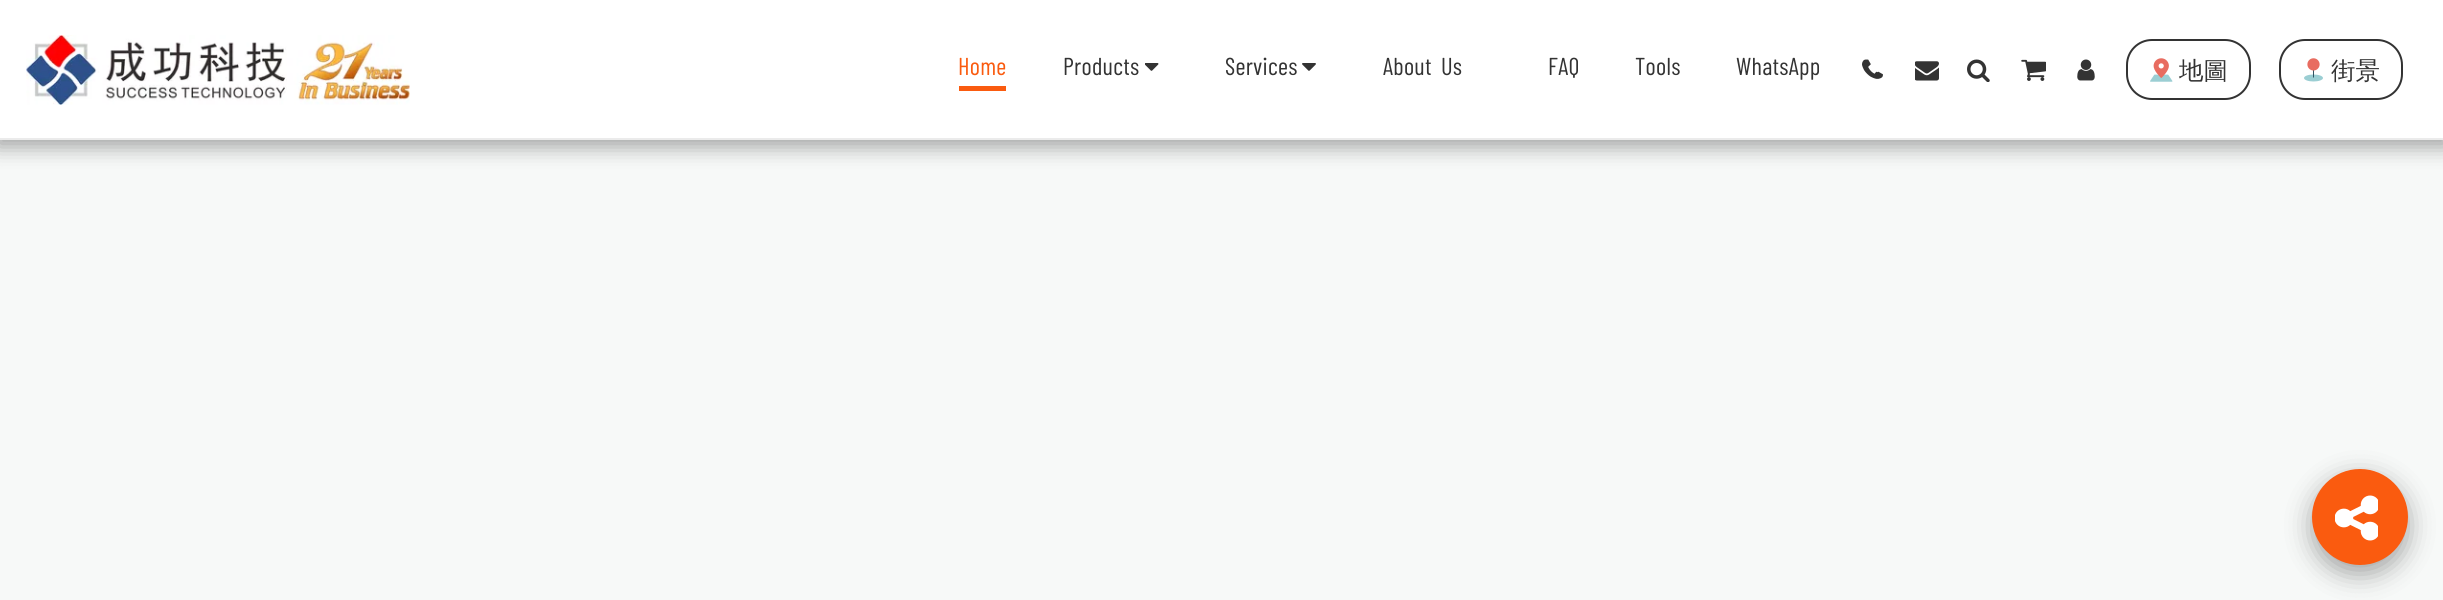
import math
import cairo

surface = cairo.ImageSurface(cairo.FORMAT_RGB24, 2443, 600)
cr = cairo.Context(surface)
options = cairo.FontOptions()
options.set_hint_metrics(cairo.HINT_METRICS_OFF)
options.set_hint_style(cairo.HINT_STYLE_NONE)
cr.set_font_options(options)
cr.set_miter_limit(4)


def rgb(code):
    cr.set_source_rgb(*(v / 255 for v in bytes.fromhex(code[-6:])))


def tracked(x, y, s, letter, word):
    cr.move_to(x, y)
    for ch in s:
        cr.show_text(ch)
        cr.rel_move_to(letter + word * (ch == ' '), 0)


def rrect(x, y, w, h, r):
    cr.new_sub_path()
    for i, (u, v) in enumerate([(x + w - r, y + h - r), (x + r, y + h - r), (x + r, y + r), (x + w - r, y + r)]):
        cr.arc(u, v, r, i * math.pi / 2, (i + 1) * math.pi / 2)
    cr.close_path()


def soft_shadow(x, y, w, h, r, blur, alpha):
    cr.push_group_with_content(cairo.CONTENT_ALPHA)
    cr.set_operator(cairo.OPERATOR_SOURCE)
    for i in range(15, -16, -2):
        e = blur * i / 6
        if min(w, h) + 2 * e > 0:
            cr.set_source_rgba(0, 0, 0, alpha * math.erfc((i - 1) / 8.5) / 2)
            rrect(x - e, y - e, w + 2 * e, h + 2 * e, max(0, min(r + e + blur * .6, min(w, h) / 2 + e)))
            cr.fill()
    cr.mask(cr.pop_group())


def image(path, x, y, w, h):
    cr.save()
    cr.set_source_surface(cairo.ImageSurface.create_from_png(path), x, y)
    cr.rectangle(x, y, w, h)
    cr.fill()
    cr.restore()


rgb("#f7f9f8")
cr.paint()
rgb("#000000")
soft_shadow(-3, 0, 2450, 147, 0, 10.5, 0.35)
rgb("#ffffff")
cr.rectangle(0, 0, 2443, 138)
cr.fill()
rgb("#ebebeb")
cr.rectangle(0, 138, 2443, 2)
cr.fill()
image("img/1.png", 26, 35, 384, 70)
rgb("#fa5b0f")
cr.rectangle(959, 86, 47, 5)
cr.fill()
image("img/2.png", 1145, 63, 14, 8)
image("img/3.png", 1302, 63, 14, 8)
image("img/4.png", 1866, 59, 17, 20)
image("img/5.png", 1862, 59, 17, 20)
image("img/6.png", 1915, 61, 24, 20)
image("img/7.png", 1967, 59, 23, 23)
image("img/8.png", 2021, 59, 25, 22)
image("img/9.png", 2077, 59, 18, 22)
rrect(2127, 40, 123, 59, 25)
rgb("#333333")
cr.stroke()
image("img/10.png", 2150, 58, 23, 24)
rrect(2280, 40, 122, 59, 25)
cr.stroke()
image("img/11.png", 2304, 58, 19, 24)
rgb("#000000")
soft_shadow(2312, 478, 96, 96, 48, 13, 0.35)
rgb("#fa5b0f")
cr.arc(2360, 517, 47, 0, 2 * math.pi)
cr.fill_preserve()
cr.stroke()
image("img/12.png", 2335, 495, 43, 46)
cr.select_font_face("Barlow Condensed")
cr.set_font_size(24.5)
tracked(958, 75, "Home", 0.25, 0)
rgb("#333333")
tracked(1063, 75, "Products", 0.25, 0)
tracked(1225, 75, "Services", 0.25, 0)
tracked(1383, 75, "About Us", 0.25, 4)
for x, y, s in [
    (1548, 75, "FAQ"),
    (1635, 75, "Tools"),
    (1736, 75, "WhatsApp"),
]:
    tracked(x, y, s, 0.25, 0)
cr.select_font_face("WenQuanYi Zen Hei Medium")
cr.move_to(2179, 79)
cr.show_text("地圖")
cr.move_to(2331, 79)
cr.show_text("街景")
surface.write_to_png("page.png")
